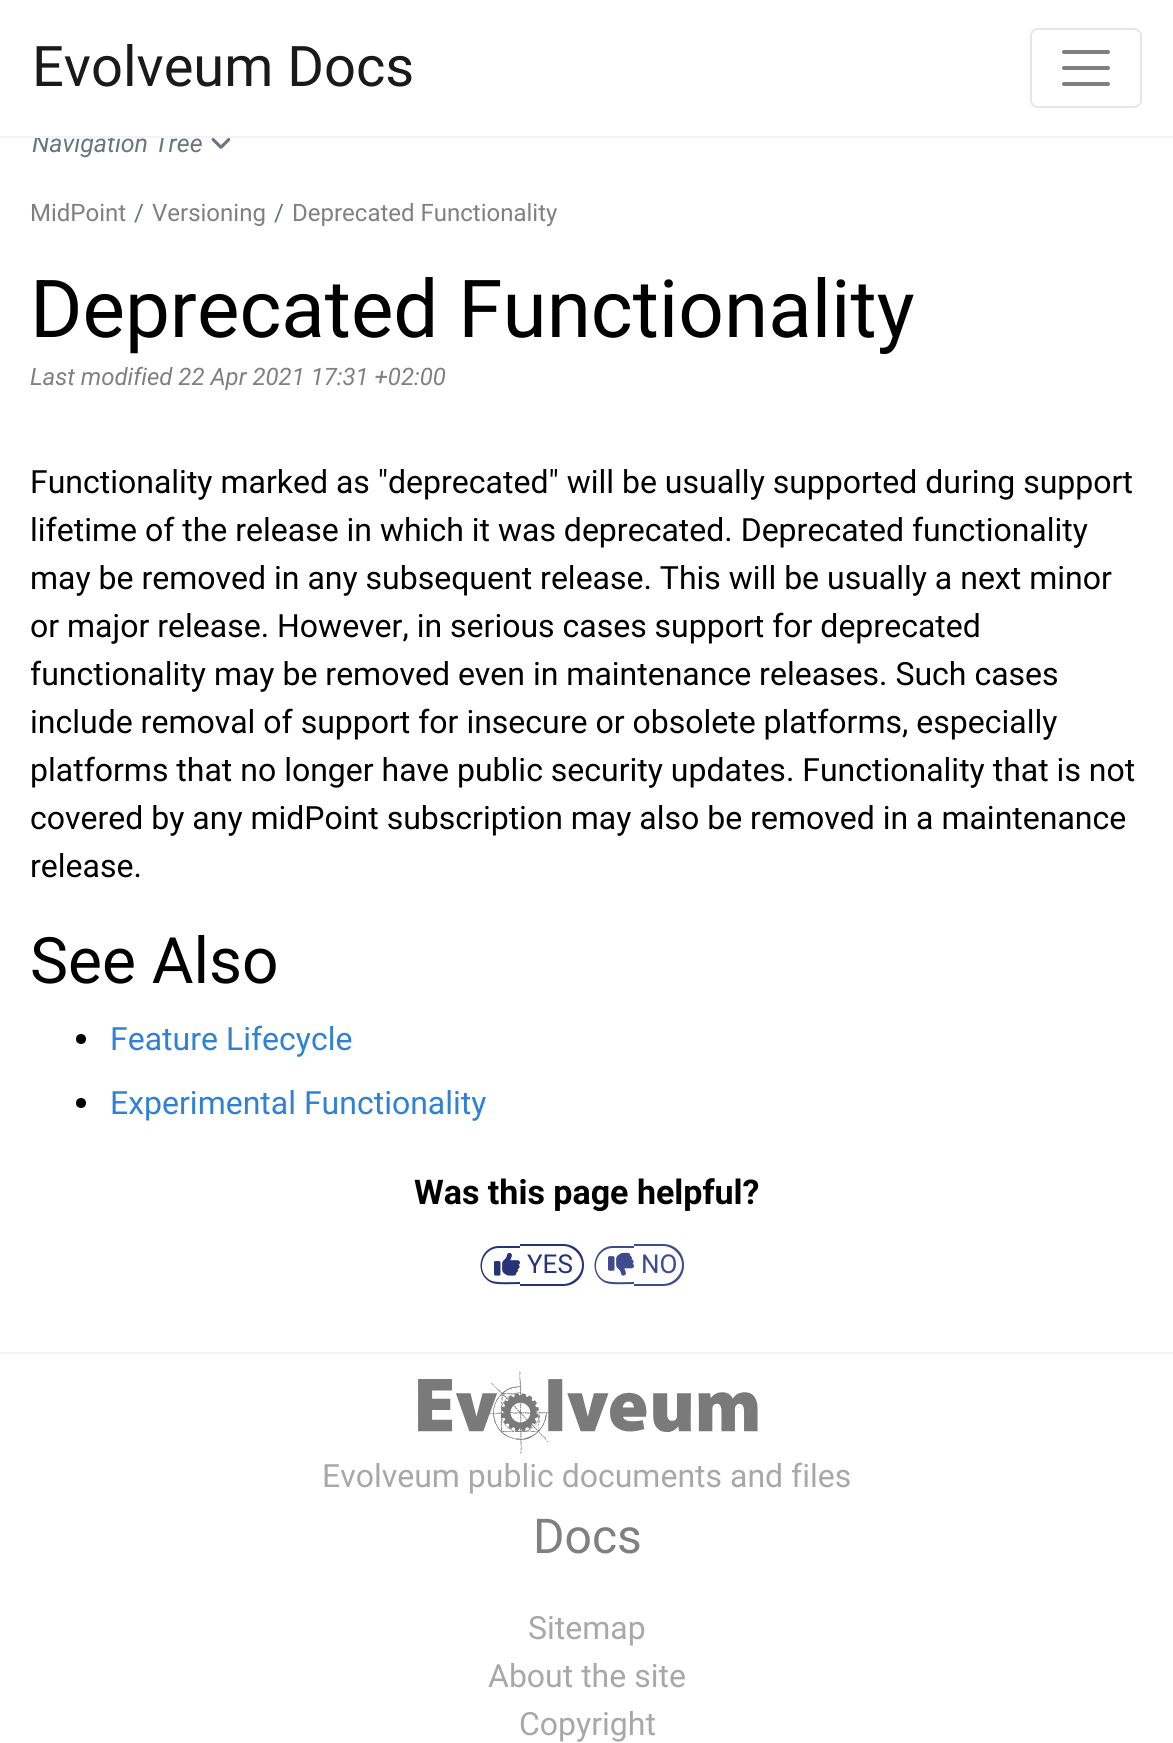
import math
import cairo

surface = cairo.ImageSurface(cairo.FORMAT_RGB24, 1173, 1743)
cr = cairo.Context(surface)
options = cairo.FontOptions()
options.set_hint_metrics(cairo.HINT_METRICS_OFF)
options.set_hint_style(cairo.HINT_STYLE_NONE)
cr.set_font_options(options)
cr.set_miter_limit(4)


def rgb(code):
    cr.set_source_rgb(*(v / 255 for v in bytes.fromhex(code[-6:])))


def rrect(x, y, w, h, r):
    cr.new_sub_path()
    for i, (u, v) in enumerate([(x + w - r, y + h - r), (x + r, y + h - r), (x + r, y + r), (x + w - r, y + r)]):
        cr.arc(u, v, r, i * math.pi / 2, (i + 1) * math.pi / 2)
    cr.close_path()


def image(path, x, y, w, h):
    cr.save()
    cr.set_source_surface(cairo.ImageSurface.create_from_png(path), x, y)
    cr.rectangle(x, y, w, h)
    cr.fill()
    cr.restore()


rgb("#ffffff")
cr.paint()
rrect(1031, 29, 110, 78, 7)
rgb("#e6e6e6")
cr.stroke()
cr.new_path()
cr.move_to(1064, 52)
cr.line_to(1108, 52)
cr.move_to(1064, 68)
cr.line_to(1108, 68)
cr.move_to(1064, 84)
cr.line_to(1108, 84)
rgb("#808080")
cr.set_line_width(4)
cr.set_line_cap(cairo.LINE_CAP_ROUND)
cr.stroke()
image("img/1.png", 211, 138, 20, 11)
rgb("#000000")
cr.arc(81, 1039, 5, 0, 2 * math.pi)
cr.fill()
cr.arc(81, 1103, 5, 0, 2 * math.pi)
cr.fill()
rgb("#273376")
cr.set_fill_rule(cairo.FILL_RULE_EVEN_ODD)
cr.new_path()
cr.move_to(499, 1246)
cr.line_to(520, 1246)
cr.line_to(520, 1284)
cr.curve_to(512, 1284, 498, 1285, 492, 1283)
cr.curve_to(473, 1275, 479, 1246, 499, 1246)
cr.close_path()
cr.move_to(499, 1248)
cr.line_to(520, 1248)
cr.line_to(520, 1282)
cr.curve_to(513, 1282, 499, 1283, 492, 1281)
cr.curve_to(475, 1274, 481, 1248, 499, 1248)
cr.close_path()
cr.fill()
cr.new_path()
cr.move_to(520, 1244)
cr.line_to(563, 1244)
cr.curve_to(575, 1244, 584, 1253, 584, 1265)
cr.curve_to(584, 1277, 575, 1286, 563, 1286)
cr.line_to(520, 1286)
cr.close_path()
cr.move_to(520, 1246)
cr.line_to(563, 1246)
cr.curve_to(573, 1246, 582, 1255, 582, 1265)
cr.curve_to(582, 1275, 573, 1284, 563, 1284)
cr.line_to(520, 1284)
cr.close_path()
cr.fill()
image("img/2.png", 494, 1252, 26, 24)
rgb("#3f4b8c")
cr.new_path()
cr.move_to(613, 1246)
cr.line_to(634, 1246)
cr.line_to(634, 1284)
cr.curve_to(626, 1284, 612, 1285, 606, 1283)
cr.curve_to(587, 1275, 593, 1246, 613, 1246)
cr.close_path()
cr.move_to(613, 1248)
cr.line_to(634, 1248)
cr.line_to(634, 1282)
cr.curve_to(627, 1282, 613, 1283, 606, 1281)
cr.curve_to(589, 1274, 595, 1248, 613, 1248)
cr.close_path()
cr.fill()
cr.new_path()
cr.move_to(634, 1244)
cr.line_to(663, 1244)
cr.curve_to(675, 1244, 684, 1253, 684, 1265)
cr.curve_to(684, 1277, 675, 1286, 663, 1286)
cr.line_to(634, 1286)
cr.close_path()
cr.move_to(634, 1246)
cr.line_to(663, 1246)
cr.curve_to(673, 1246, 682, 1255, 682, 1265)
cr.curve_to(682, 1275, 673, 1284, 663, 1284)
cr.line_to(634, 1284)
cr.close_path()
cr.fill()
image("img/3.png", 608, 1252, 26, 24)
rgb("#f3f3f3")
cr.rectangle(0, 1352, 1173, 2)
cr.fill()
image("img/4.png", 418, 1371, 340, 83)
cr.select_font_face("Roboto")
cr.set_font_size(56)
rgb("#1a1a1a")
cr.move_to(32, 86)
cr.show_text("Evolveum Docs")
cr.select_font_face("Roboto", cairo.FONT_SLANT_ITALIC)
cr.set_font_size(25)
rgb("#6c757d")
cr.move_to(32, 152)
cr.show_text("Navigation Tree")
rgb("#f3f3f3")
cr.rectangle(0, 136, 1173, 2)
cr.fill()
rgb("#ffffff")
cr.rectangle(35, 134, 135, 2)
cr.fill()
cr.select_font_face("Roboto")
cr.set_font_size(24)
rgb("#808080")
cr.move_to(30, 221)
cr.show_text("MidPoint")
rgb("#6c757d")
cr.move_to(134, 221)
cr.show_text("/")
rgb("#808080")
cr.move_to(152, 221)
cr.show_text("Versioning")
rgb("#6c757d")
cr.move_to(274, 221)
cr.show_text("/")
rgb("#808080")
cr.move_to(292, 221)
cr.show_text("Deprecated Functionality")
cr.set_font_size(80)
rgb("#000000")
cr.move_to(30, 337)
cr.show_text("Deprecated Functionality")
cr.select_font_face("Roboto", cairo.FONT_SLANT_ITALIC)
cr.set_font_size(24)
rgb("#808080")
cr.move_to(30, 385)
cr.show_text("Last modified 22 Apr 2021 17:31 +02:00")
cr.select_font_face("Roboto")
cr.set_font_size(32)
rgb("#000000")
for x, y, s in [
    (30, 493, "Functionality marked as \"deprecated\" will be usually supported during support"),
    (30, 541, "lifetime of the release in which it was deprecated. Deprecated functionality"),
    (30, 589, "may be removed in any subsequent release. This will be usually a next minor"),
    (30, 637, "or major release. However, in serious cases support for deprecated"),
    (30, 685, "functionality may be removed even in maintenance releases. Such cases"),
    (30, 733, "include removal of support for insecure or obsolete platforms, especially"),
    (30, 781, "platforms that no longer have public security updates. Functionality that is not"),
    (30, 829, "covered by any midPoint subscription may also be removed in a maintenance"),
    (30, 877, "release."),
]:
    cr.move_to(x, y)
    cr.show_text(s)
cr.set_font_size(64)
cr.move_to(30, 983)
cr.show_text("See Also")
cr.set_font_size(32)
rgb("#2f81d4")
cr.move_to(110, 1050)
cr.show_text("Feature Lifecycle")
cr.move_to(110, 1114)
cr.show_text("Experimental Functionality")
cr.select_font_face("Roboto", cairo.FONT_SLANT_NORMAL, cairo.FONT_WEIGHT_BOLD)
cr.set_font_size(34)
rgb("#000000")
cr.move_to(414, 1204)
cr.show_text("Was this page helpful?")
cr.select_font_face("Roboto")
cr.set_font_size(26)
rgb("#273376")
cr.move_to(527, 1273)
cr.show_text("YES")
rgb("#3f4b8c")
cr.move_to(641, 1273)
cr.show_text("NO")
cr.set_font_size(32)
rgb("#a8a8a8")
cr.move_to(322, 1487)
cr.show_text("Evolveum public documents and files")
cr.set_font_size(48)
rgb("#808080")
cr.move_to(533, 1553)
cr.show_text("Docs")
cr.set_font_size(32)
rgb("#a8a8a8")
for x, y, s in [
    (528, 1639, "Sitemap"),
    (488, 1687, "About the site"),
    (519, 1735, "Copyright"),
]:
    cr.move_to(x, y)
    cr.show_text(s)
surface.write_to_png("page.png")
